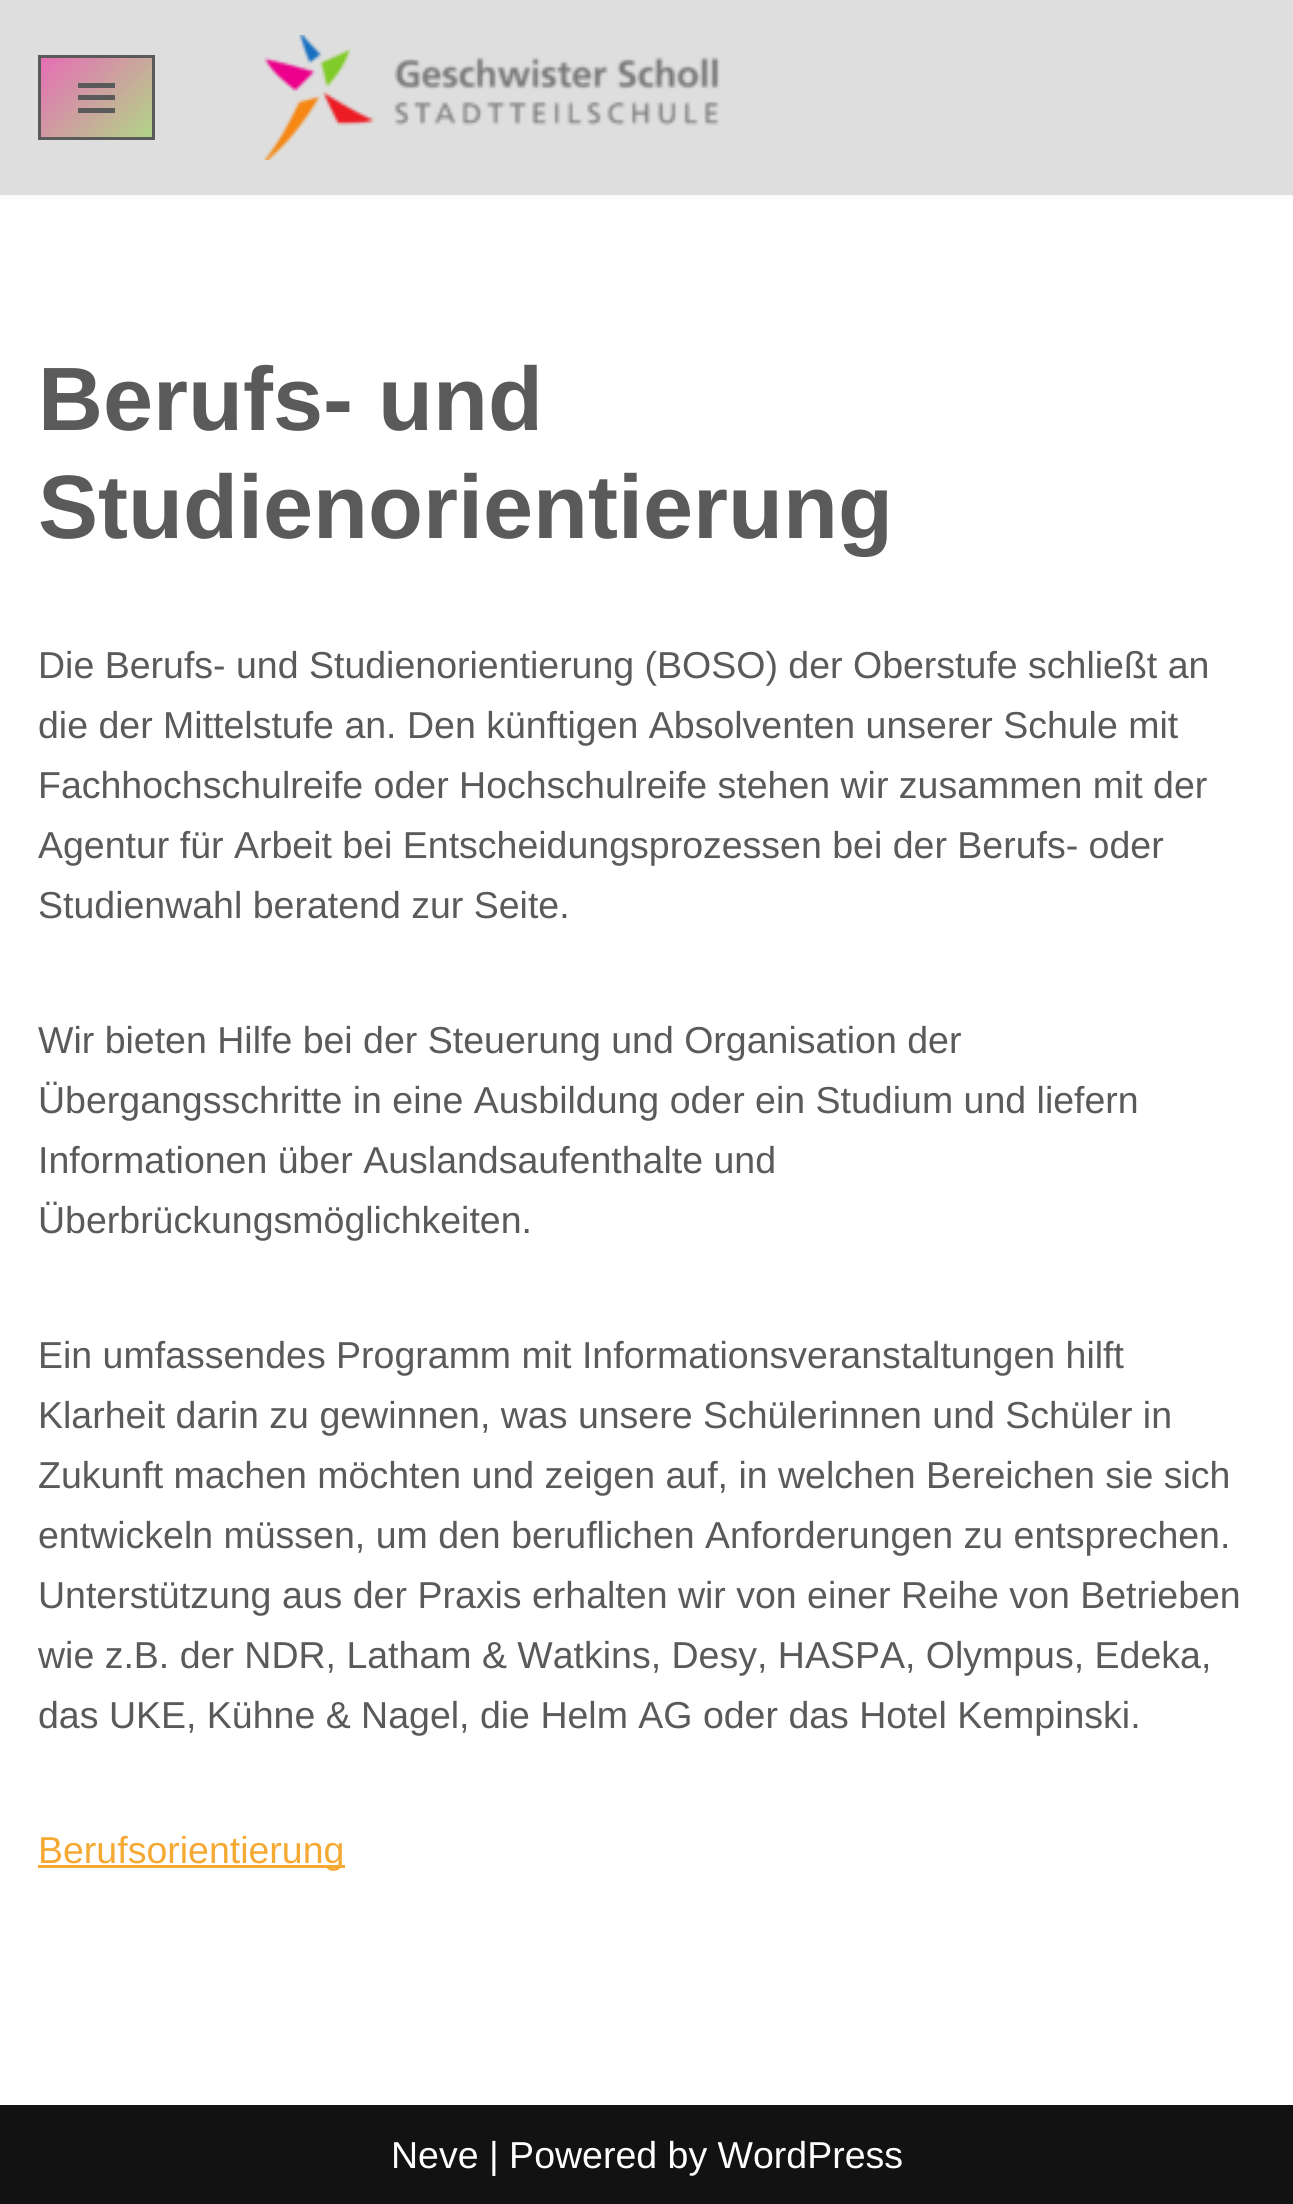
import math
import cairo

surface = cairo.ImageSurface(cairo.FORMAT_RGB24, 1293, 2204)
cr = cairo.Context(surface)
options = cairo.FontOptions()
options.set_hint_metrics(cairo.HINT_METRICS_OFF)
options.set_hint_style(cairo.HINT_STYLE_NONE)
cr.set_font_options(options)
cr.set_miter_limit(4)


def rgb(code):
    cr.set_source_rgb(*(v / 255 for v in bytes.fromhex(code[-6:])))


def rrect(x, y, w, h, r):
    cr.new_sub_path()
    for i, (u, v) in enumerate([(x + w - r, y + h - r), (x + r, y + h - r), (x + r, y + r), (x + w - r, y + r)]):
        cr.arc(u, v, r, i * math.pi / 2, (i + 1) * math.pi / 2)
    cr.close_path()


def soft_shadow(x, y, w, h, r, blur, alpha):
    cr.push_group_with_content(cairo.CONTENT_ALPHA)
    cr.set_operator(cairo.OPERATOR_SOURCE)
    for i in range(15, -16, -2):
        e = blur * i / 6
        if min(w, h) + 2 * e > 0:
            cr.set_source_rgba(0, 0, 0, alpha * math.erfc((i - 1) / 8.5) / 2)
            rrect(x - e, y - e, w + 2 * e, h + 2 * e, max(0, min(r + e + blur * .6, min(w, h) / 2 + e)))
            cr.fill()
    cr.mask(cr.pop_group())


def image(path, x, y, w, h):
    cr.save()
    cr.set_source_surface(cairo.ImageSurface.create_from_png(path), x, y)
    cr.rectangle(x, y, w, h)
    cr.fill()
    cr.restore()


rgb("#ffffff")
cr.paint()
rgb("#000000")
soft_shadow(0, -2, 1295, 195, 0, 4, 0.1)
rgb("#dedede")
cr.rectangle(0, 0, 1293, 195)
cr.fill()
gradient = cairo.LinearGradient(48, 49, 144, 146)
gradient.add_color_stop_rgba(0, 0.902, 0.427, 0.71, 1)
gradient.add_color_stop_rgba(1, 0.698, 0.839, 0.533, 1)
cr.set_source(gradient)
cr.rectangle(41, 58, 111, 79)
cr.fill()
cr.rectangle(39.5, 56.5, 114, 82)
rgb("#5a5a5a")
cr.set_line_width(3)
cr.stroke()
for x, y, w, h, color in [
    (78, 83, 37, 5, "#5a5a5a"),
    (78, 95, 37, 5, "#5a5a5a"),
    (78, 108, 37, 5, "#5a5a5a"),
]:
    rgb(color)
    cr.rectangle(x, y, w, h)
    cr.fill()
image("img/1.png", 263, 35, 457, 125)
rgb("#f5a933")
cr.rectangle(38, 1865, 307, 3)
cr.fill()
rgb("#121212")
cr.rectangle(0, 2105, 1293, 99)
cr.fill()
cr.select_font_face("Liberation Sans", cairo.FONT_SLANT_NORMAL, cairo.FONT_WEIGHT_BOLD)
cr.set_font_size(90)
rgb("#5a5a5a")
cr.move_to(38, 430)
cr.show_text("Berufs- und")
cr.move_to(38, 538)
cr.show_text("Studienorientierung")
cr.select_font_face("Liberation Sans")
cr.set_font_size(37.5)
for x, y, s in [
    (38, 678, "Die Berufs- und Studienorientierung (BOSO) der Oberstufe schließt an"),
    (38, 738, "die der Mittelstufe an. Den künftigen Absolventen unserer Schule mit"),
    (38, 798, "Fachhochschulreife oder Hochschulreife stehen wir zusammen mit der"),
    (38, 858, "Agentur für Arbeit bei Entscheidungsprozessen bei der Berufs- oder"),
    (38, 918, "Studienwahl beratend zur Seite."),
    (38, 1053, "Wir bieten Hilfe bei der Steuerung und Organisation der"),
    (38, 1113, "Übergangsschritte in eine Ausbildung oder ein Studium und liefern"),
    (38, 1173, "Informationen über Auslandsaufenthalte und"),
    (38, 1233, "Überbrückungsmöglichkeiten."),
    (38, 1368, "Ein umfassendes Programm mit Informationsveranstaltungen hilft"),
    (38, 1428, "Klarheit darin zu gewinnen, was unsere Schülerinnen und Schüler in"),
    (38, 1488, "Zukunft machen möchten und zeigen auf, in welchen Bereichen sie sich"),
    (38, 1548, "entwickeln müssen, um den beruflichen Anforderungen zu entsprechen."),
    (38, 1608, "Unterstützung aus der Praxis erhalten wir von einer Reihe von Betrieben"),
    (38, 1668, "wie z.B. der NDR, Latham & Watkins, Desy, HASPA, Olympus, Edeka,"),
    (38, 1728, "das UKE, Kühne & Nagel, die Helm AG oder das Hotel Kempinski."),
]:
    cr.move_to(x, y)
    cr.show_text(s)
rgb("#f5a933")
cr.move_to(38, 1863)
cr.show_text("Berufsorientierung")
rgb("#ffffff")
cr.move_to(391, 2168)
cr.show_text("Neve | Powered by WordPress")
surface.write_to_png("page.png")
